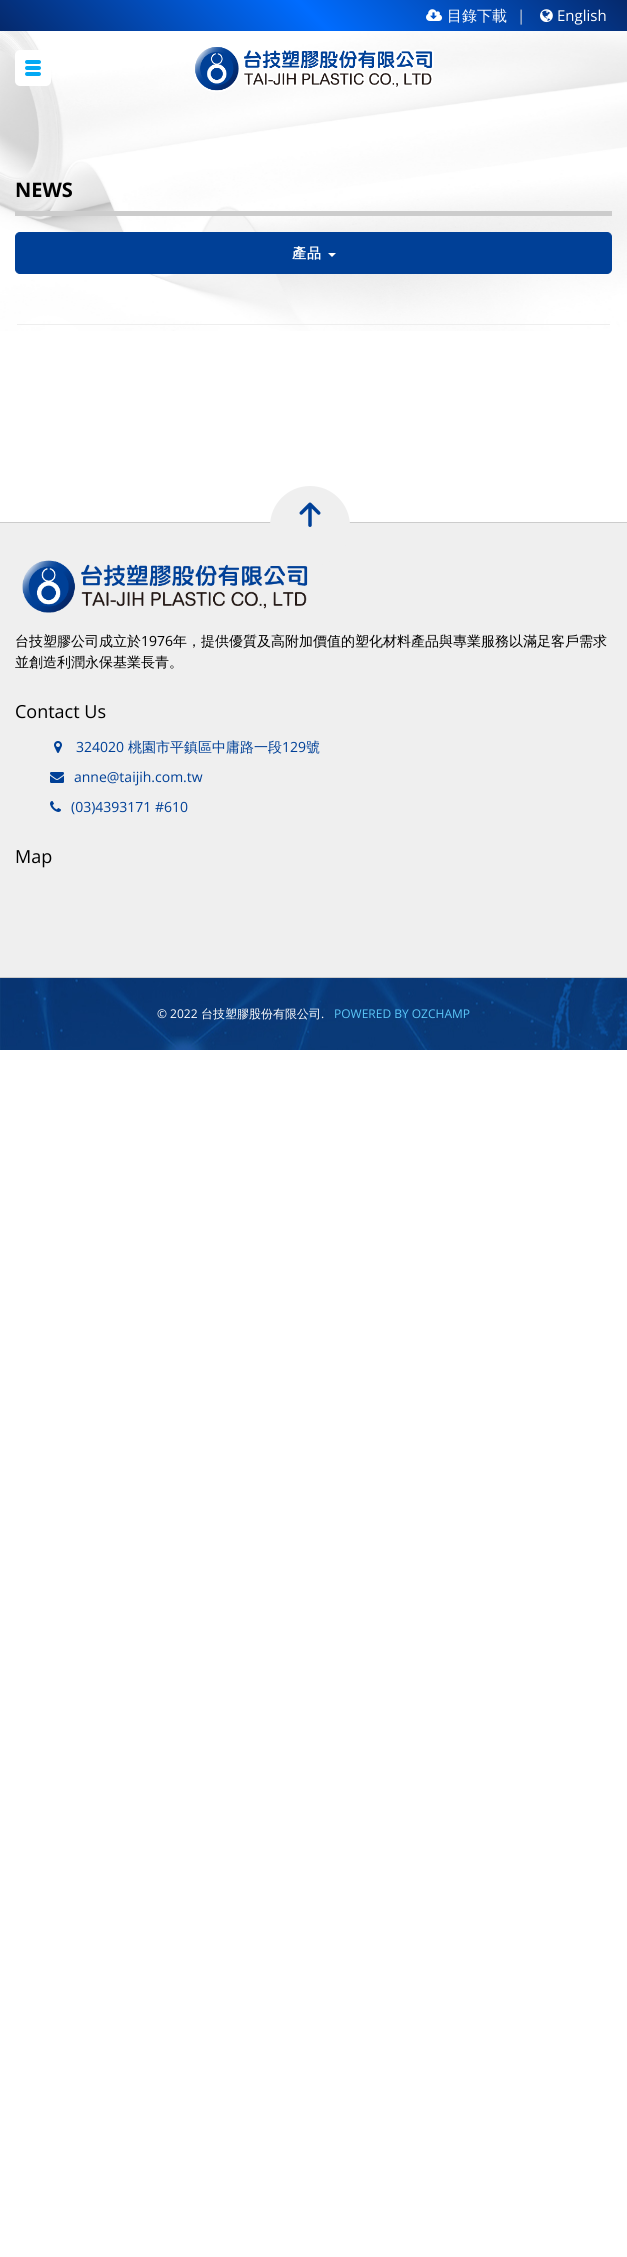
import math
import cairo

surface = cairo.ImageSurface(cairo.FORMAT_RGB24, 627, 2257)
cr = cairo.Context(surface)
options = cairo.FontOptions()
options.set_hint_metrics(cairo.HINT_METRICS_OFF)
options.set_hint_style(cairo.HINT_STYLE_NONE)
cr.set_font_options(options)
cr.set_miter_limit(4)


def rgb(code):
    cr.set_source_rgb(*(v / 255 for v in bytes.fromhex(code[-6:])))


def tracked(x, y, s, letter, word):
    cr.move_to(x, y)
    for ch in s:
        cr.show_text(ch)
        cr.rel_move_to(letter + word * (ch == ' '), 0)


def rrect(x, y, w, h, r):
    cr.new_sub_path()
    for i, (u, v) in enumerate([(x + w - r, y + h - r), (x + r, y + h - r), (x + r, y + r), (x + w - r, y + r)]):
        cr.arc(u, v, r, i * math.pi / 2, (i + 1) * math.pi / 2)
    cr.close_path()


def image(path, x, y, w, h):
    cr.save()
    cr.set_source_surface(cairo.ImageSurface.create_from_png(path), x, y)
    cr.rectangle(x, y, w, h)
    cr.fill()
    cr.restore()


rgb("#ffffff")
cr.paint()
image("img/1.png", 0, 31, 627, 300)
gradient = cairo.LinearGradient(149, 180, 478, -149)
gradient.add_color_stop_rgba(0, 0.02, 0.161, 0.424, 1)
gradient.add_color_stop_rgba(0.5, 0, 0.424, 1, 1)
gradient.add_color_stop_rgba(1, 0.02, 0.161, 0.424, 1)
cr.set_source(gradient)
cr.rectangle(0, 0, 627, 31)
cr.fill()
image("img/2.png", 426, 9, 17, 12)
image("img/3.png", 540, 9, 13, 14)
rgb("#ffffff")
rrect(15, 50, 36, 36, 5)
cr.fill()
image("img/4.png", 25, 60, 16, 16)
image("img/5.png", 195, 47, 239, 45)
rgb("#cccccc")
cr.rectangle(15, 211, 597, 5)
cr.fill()
rgb("#004097")
rrect(15.5, 232.5, 596, 41, 4.5)
cr.fill_preserve()
cr.set_line_width(1)
cr.stroke()
rgb("#ffffff")
cr.new_path()
cr.move_to(328, 253)
cr.line_to(336, 253)
cr.line_to(332, 257)
cr.close_path()
cr.fill()
for x, y, w, h, color in [
    (17, 324, 593, 1, "#eeeeee"),
    (0, 523, 627, 454, "#efefef"),
    (0, 522, 627, 1, "#cccccc"),
]:
    rgb(color)
    cr.rectangle(x, y, w, h)
    cr.fill()
image("img/7.png", 22, 560, 286, 53)
rgb("#efefef")
cr.arc(310, 526, 40, 0, 2 * math.pi)
cr.fill()
image("img/6.png", 299, 502, 22, 25)
image("img/8.png", 54, 741, 8, 12)
image("img/9.png", 50, 772, 14, 11)
image("img/10.png", 50, 801, 11, 11)
image("img/11.png", 0, 978, 627, 72)
rgb("#cccccc")
cr.rectangle(0, 977, 627, 1)
cr.fill()
cr.select_font_face("WenQuanYi Zen Hei Medium")
cr.set_font_size(15)
rgb("#ffffff")
cr.move_to(447, 21)
cr.show_text("目錄下載")
cr.select_font_face("Open Sans")
rgb("#dddddd")
cr.move_to(517, 21)
cr.show_text("|")
rgb("#ffffff")
cr.move_to(557, 21)
cr.show_text("English")
cr.select_font_face("Open Sans", cairo.FONT_SLANT_NORMAL, cairo.FONT_WEIGHT_BOLD)
cr.set_font_size(20)
rgb("#000000")
cr.move_to(15, 197)
cr.show_text("NEWS")
cr.select_font_face("WenQuanYi Zen Hei", cairo.FONT_SLANT_NORMAL, cairo.FONT_WEIGHT_BOLD)
cr.set_font_size(14)
rgb("#ffffff")
tracked(292, 258, "產品", 1, 0)
cr.select_font_face("WenQuanYi Zen Hei Medium")
rgb("#000000")
cr.move_to(15, 646)
cr.show_text("台技塑膠公司成立於")
cr.select_font_face("Open Sans")
cr.move_to(141, 646)
cr.show_text("1976")
cr.select_font_face("WenQuanYi Zen Hei Medium")
cr.move_to(173, 646)
cr.show_text("年，提供優質及高附加價值的塑化材料產品與專業服務以滿足客戶需求")
cr.move_to(15, 667)
cr.show_text("並創造利潤永保基業長青。")
cr.select_font_face("Open Sans")
cr.set_font_size(18)
cr.move_to(15, 718)
cr.show_text("Contact Us")
cr.set_font_size(14)
rgb("#004097")
cr.move_to(76, 752)
cr.show_text("324020")
cr.select_font_face("WenQuanYi Zen Hei Medium")
cr.move_to(128, 752)
cr.show_text("桃園市平鎮區中庸路一段")
cr.select_font_face("Open Sans")
cr.move_to(282, 752)
cr.show_text("129")
cr.select_font_face("WenQuanYi Zen Hei Medium")
cr.move_to(306, 752)
cr.show_text("號")
cr.select_font_face("Open Sans")
cr.move_to(74, 782)
cr.show_text("anne@taijih.com.tw")
cr.move_to(71, 812)
cr.show_text("(03)4393171 #610")
cr.set_font_size(18)
rgb("#000000")
cr.move_to(15, 863)
cr.show_text("Map")
cr.set_font_size(12)
rgb("#ffffff")
cr.move_to(157, 1018)
cr.show_text("© 2022")
cr.select_font_face("WenQuanYi Zen Hei Medium")
cr.move_to(201, 1018)
cr.show_text("台技塑膠股份有限公司")
cr.select_font_face("Open Sans")
cr.move_to(321, 1018)
cr.show_text(".")
rgb("#5bc7f8")
cr.move_to(334, 1018)
cr.show_text("POWERED BY OZCHAMP")
surface.write_to_png("page.png")
